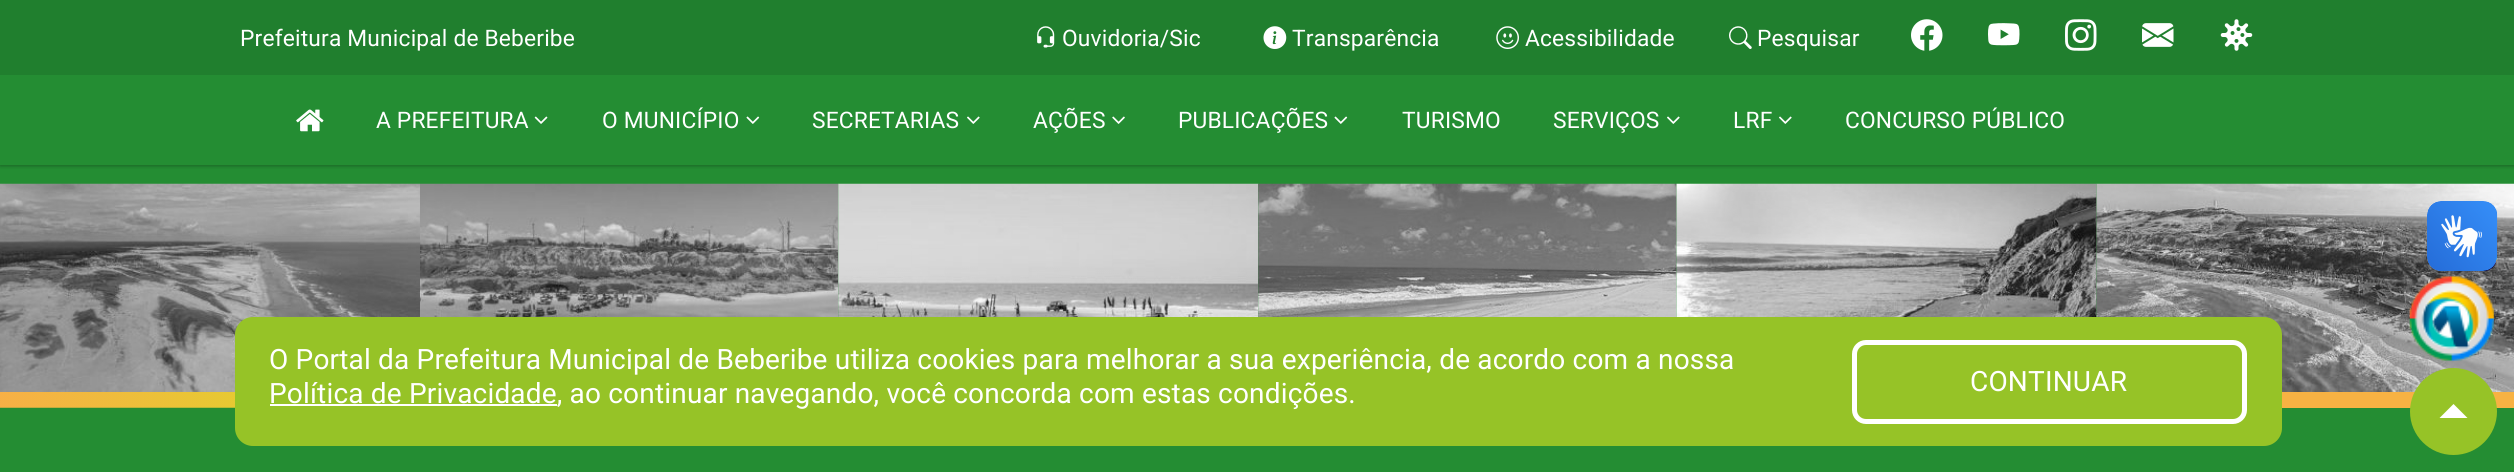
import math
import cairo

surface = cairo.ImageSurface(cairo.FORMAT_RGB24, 2514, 472)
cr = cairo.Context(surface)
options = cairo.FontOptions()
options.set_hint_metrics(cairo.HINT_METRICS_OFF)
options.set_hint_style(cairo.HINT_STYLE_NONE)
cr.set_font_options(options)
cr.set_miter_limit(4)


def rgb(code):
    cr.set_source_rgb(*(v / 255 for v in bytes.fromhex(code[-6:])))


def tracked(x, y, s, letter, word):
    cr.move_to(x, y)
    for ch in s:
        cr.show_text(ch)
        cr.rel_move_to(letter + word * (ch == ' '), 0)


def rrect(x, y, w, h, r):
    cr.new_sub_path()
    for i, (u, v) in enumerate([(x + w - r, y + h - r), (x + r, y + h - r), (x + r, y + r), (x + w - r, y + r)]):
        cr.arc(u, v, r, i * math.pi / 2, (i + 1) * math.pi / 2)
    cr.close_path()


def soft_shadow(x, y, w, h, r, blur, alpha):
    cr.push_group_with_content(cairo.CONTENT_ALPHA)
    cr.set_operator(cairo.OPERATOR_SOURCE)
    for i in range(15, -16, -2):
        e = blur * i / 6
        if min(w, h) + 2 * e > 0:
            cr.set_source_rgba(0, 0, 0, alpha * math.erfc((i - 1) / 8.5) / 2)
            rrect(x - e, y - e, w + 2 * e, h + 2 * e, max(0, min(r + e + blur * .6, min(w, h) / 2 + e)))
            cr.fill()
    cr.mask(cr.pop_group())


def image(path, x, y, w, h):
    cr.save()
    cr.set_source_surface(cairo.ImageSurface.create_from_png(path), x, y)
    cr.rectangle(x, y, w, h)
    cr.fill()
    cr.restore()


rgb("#248d33")
cr.paint()
rgb("#000000")
soft_shadow(0, 2, 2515, 164, 0, 2, 0.3)
rgb("#207f2e")
cr.rectangle(0, 0, 2514, 75)
cr.fill()
image("img/1.png", 1037, 26, 18, 22)
image("img/2.png", 1263, 26, 24, 23)
image("img/3.png", 1496, 26, 23, 23)
image("img/4.png", 1729, 26, 23, 23)
image("img/5.png", 1911, 19, 32, 32)
image("img/6.png", 1988, 23, 32, 23)
image("img/7.png", 2065, 19, 32, 32)
image("img/8.png", 2142, 23, 32, 24)
image("img/9.png", 2220, 19, 33, 32)
rgb("#248d33")
cr.rectangle(0, 75, 2514, 90)
cr.fill()
image("img/10.png", 296, 109, 28, 23)
image("img/11.png", 534, 116, 14, 8)
image("img/12.png", 746, 116, 14, 8)
image("img/13.png", 967, 116, 13, 8)
image("img/14.png", 1112, 116, 13, 8)
image("img/12.png", 1334, 116, 14, 8)
image("img/13.png", 1667, 116, 13, 8)
image("img/13.png", 1779, 116, 13, 8)
image("img/15.png", 0, 183, 420, 209)
image("img/16.png", 420, 183, 419, 134)
image("img/17.png", 838, 183, 421, 134)
image("img/18.png", 1258, 183, 419, 134)
image("img/19.png", 1676, 183, 421, 134)
image("img/20.png", 2096, 183, 418, 209)
image("img/21.png", 0, 392, 235, 16)
rgb("#f7b243")
cr.rectangle(2282, 392, 232, 16)
cr.fill()
image("img/22.png", 2427, 201, 71, 71)
image("img/23.png", 2427, 201, 70, 70)
image("img/24.png", 2409, 276, 85, 85)
rgb("#96c327")
rrect(235, 317, 2047, 129, 18)
cr.fill()
rgb("#ffffff")
cr.rectangle(270, 404, 287, 2)
cr.fill()
rrect(1854.5, 342.5, 390, 79, 11.5)
cr.set_line_width(5)
cr.stroke()
rgb("#96c327")
cr.arc(2453.5, 411.5, 43.5, 0, 2 * math.pi)
cr.fill()
rgb("#ffffff")
cr.new_path()
cr.move_to(2467.5, 418)
cr.line_to(2439.5, 418)
cr.line_to(2453.5, 404)
cr.close_path()
cr.fill()
cr.select_font_face("Roboto")
cr.set_font_size(22.75)
for x, y, s in [
    (240, 46, "Prefeitura Municipal de Beberibe"),
    (1062, 46, "Ouvidoria/Sic"),
    (1292, 46, "Transparência"),
    (1525, 46, "Acessibilidade"),
    (1757, 46, "Pesquisar"),
    (376, 128, "A PREFEITURA"),
    (602, 128, "O MUNICÍPIO"),
    (812, 128, "SECRETARIAS"),
    (1033, 128, "AÇÕES"),
    (1178, 128, "PUBLICAÇÕES"),
    (1402, 128, "TURISMO"),
    (1553, 128, "SERVIÇOS"),
    (1733, 128, "LRF"),
    (1845, 128, "CONCURSO PÚBLICO"),
]:
    tracked(x, y, s, 0.18, 0)
cr.set_font_size(28)
for x, y, s in [
    (269, 369, "O Portal da Prefeitura Municipal de Beberibe utiliza cookies para melhorar a sua experiência, de acordo com a nossa"),
    (269, 403, "Política de Privacidade, ao continuar navegando, você concorda com estas condições."),
    (1970, 391, "CONTINUAR"),
]:
    tracked(x, y, s, 0.18, 0)
surface.write_to_png("page.png")
